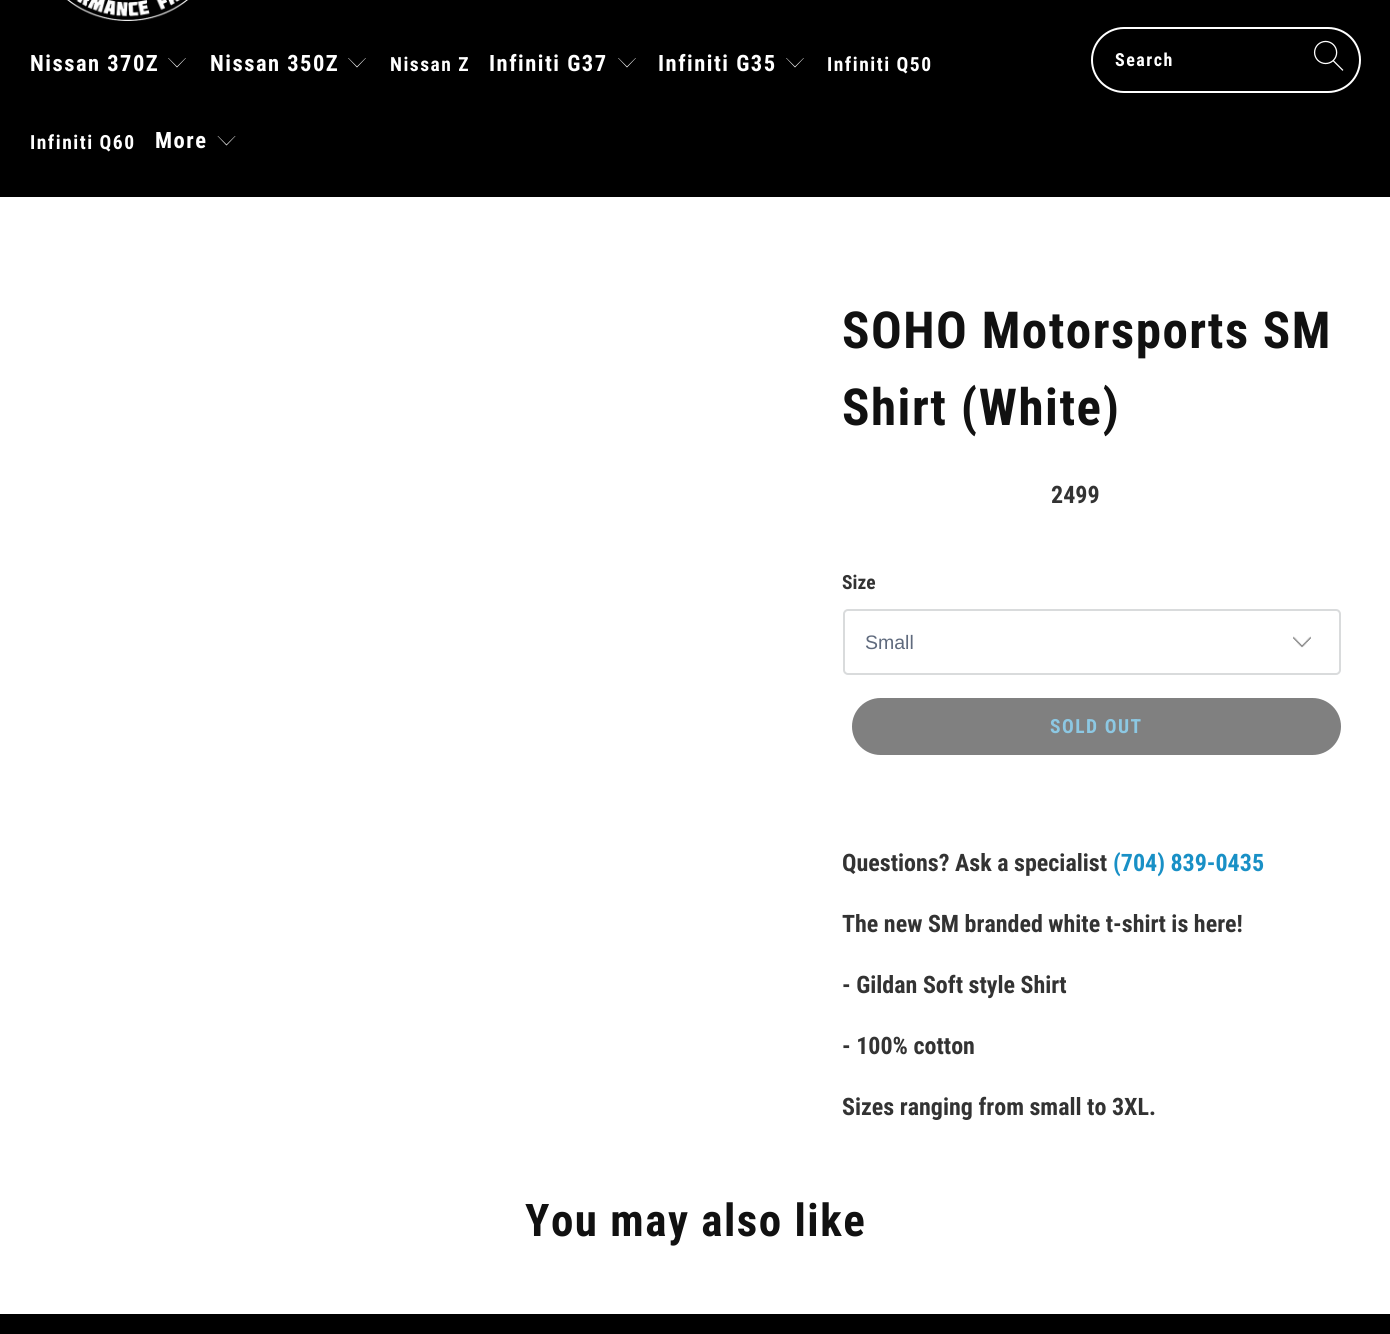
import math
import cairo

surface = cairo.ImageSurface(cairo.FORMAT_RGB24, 1390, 1334)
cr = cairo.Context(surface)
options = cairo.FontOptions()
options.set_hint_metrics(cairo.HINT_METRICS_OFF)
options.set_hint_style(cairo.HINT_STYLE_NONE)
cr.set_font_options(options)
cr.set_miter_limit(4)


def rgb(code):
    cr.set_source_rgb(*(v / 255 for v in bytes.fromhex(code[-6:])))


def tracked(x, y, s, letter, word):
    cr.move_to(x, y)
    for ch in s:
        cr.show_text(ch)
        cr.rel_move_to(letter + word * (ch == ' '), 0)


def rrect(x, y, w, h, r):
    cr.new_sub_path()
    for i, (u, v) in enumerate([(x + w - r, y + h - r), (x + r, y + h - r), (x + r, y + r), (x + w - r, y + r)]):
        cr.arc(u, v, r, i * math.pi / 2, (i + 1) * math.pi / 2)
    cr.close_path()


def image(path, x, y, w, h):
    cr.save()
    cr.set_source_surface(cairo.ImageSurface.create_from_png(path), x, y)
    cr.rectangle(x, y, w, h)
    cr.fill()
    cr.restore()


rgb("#ffffff")
cr.paint()
rgb("#000000")
cr.rectangle(0, 0, 1390, 197)
cr.fill()
image("img/1.png", 66, 0, 123, 21)
rgb("#ffffff")
cr.new_path()
cr.move_to(177, 67.5)
cr.line_to(168, 58)
cr.line_to(168.5, 58)
cr.line_to(177, 66.5)
cr.line_to(185.5, 58)
cr.line_to(186, 58)
cr.close_path()
cr.fill()
cr.new_path()
cr.move_to(357, 67.5)
cr.line_to(348, 58)
cr.line_to(348.5, 58)
cr.line_to(357, 66.5)
cr.line_to(365.5, 58)
cr.line_to(366, 58)
cr.close_path()
cr.fill()
cr.new_path()
cr.move_to(627, 67.5)
cr.line_to(618, 58)
cr.line_to(618.5, 58)
cr.line_to(627, 66.5)
cr.line_to(635.5, 58)
cr.line_to(636, 58)
cr.close_path()
cr.fill()
cr.new_path()
cr.move_to(795, 67.5)
cr.line_to(786, 58)
cr.line_to(786.5, 58)
cr.line_to(795, 66.5)
cr.line_to(803.5, 58)
cr.line_to(804, 58)
cr.close_path()
cr.fill()
cr.new_path()
cr.move_to(226.5, 145.5)
cr.line_to(217.5, 136)
cr.line_to(218, 136)
cr.line_to(226.5, 144.5)
cr.line_to(235, 136)
cr.line_to(235.5, 136)
cr.close_path()
cr.fill()
rrect(1092, 28, 268, 64, 32)
cr.stroke()
image("img/2.png", 1313, 40, 31, 31)
image("img/3.png", 1293, 636, 18, 12)
rrect(844, 610, 496, 64, 4)
rgb("#d9dbdc")
cr.stroke()
rgb("#808080")
rrect(853, 699, 487, 55, 27.5)
cr.fill_preserve()
cr.stroke()
rgb("#000000")
cr.rectangle(0, 1314, 1390, 20)
cr.fill()
cr.select_font_face("Roboto Condensed", cairo.FONT_SLANT_NORMAL, cairo.FONT_WEIGHT_BOLD)
cr.set_font_size(22.5)
rgb("#ffffff")
tracked(30, 71, "Nissan 370Z", 1.5, 0)
tracked(210, 71, "Nissan 350Z", 1.5, 0)
cr.set_font_size(19.5)
tracked(390, 71, "Nissan Z", 1.5, 0)
cr.set_font_size(22.5)
tracked(489, 71, "Infiniti G37", 1.5, 0)
tracked(658, 71, "Infiniti G35", 1.5, 0)
cr.set_font_size(19.5)
tracked(827, 71, "Infiniti Q50", 1.5, 0)
tracked(30, 149, "Infiniti Q60", 1.5, 0)
cr.set_font_size(22.5)
tracked(155, 148, "More", 1.5, 0)
cr.set_font_size(18)
tracked(1115, 66, "Search", 1.5, 0)
cr.set_font_size(51)
rgb("#111111")
tracked(842, 348, "SOHO Motorsports SM", 1.5, 0)
tracked(842, 425, "Shirt (White)", 1.5, 0)
cr.set_font_size(24)
rgb("#333333")
cr.move_to(1051, 503)
cr.show_text("2499")
cr.set_font_size(19.5)
cr.move_to(842, 589)
cr.show_text("Size")
cr.select_font_face("Liberation Sans")
rgb("#5f6a7d")
cr.move_to(865, 649)
cr.show_text("Small")
cr.select_font_face("Roboto Condensed", cairo.FONT_SLANT_NORMAL, cairo.FONT_WEIGHT_BOLD)
rgb("#8cc8e3")
tracked(1050, 733, "SOLD OUT", 1.5, 0)
cr.set_font_size(24)
rgb("#333333")
cr.move_to(842, 871)
cr.show_text("Questions? Ask a specialist")
rgb("#1990c6")
cr.move_to(1113, 871)
cr.show_text("(704) 839-0435")
rgb("#333333")
for x, y, s in [
    (842, 932, "The new SM branded white t-shirt is here!"),
    (842, 993, "- Gildan Soft style Shirt"),
    (842, 1054, "- 100% cotton"),
    (842, 1115, "Sizes ranging from small to 3XL."),
]:
    cr.move_to(x, y)
    cr.show_text(s)
cr.set_font_size(45)
rgb("#111111")
tracked(525, 1236, "You may also like", 1.5, 0)
surface.write_to_png("page.png")
